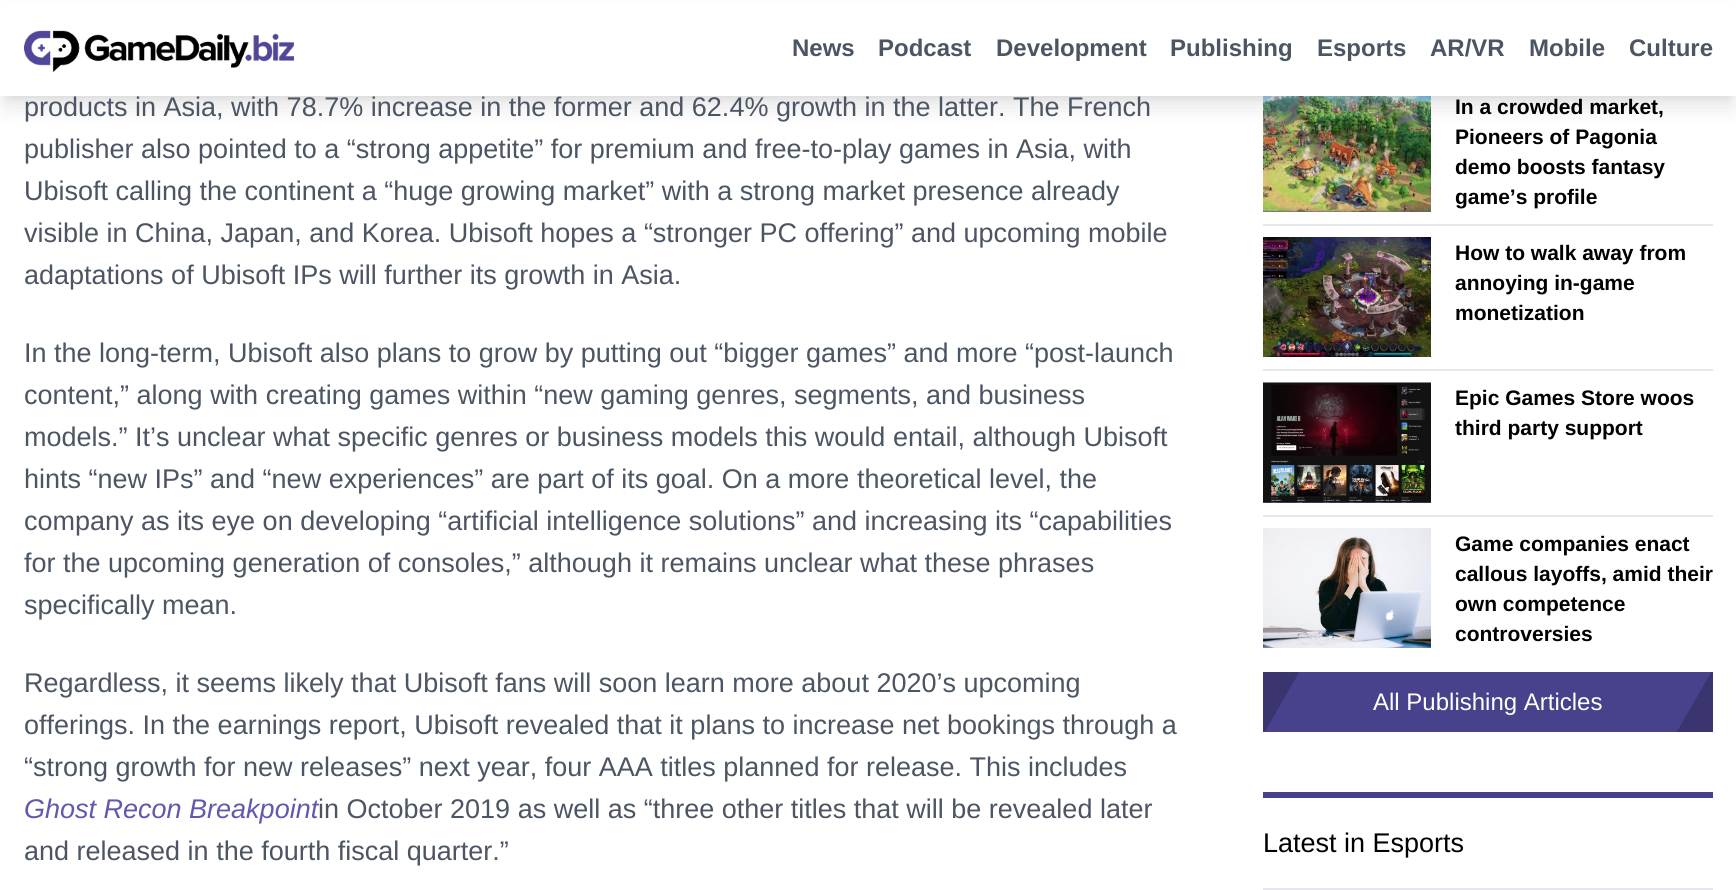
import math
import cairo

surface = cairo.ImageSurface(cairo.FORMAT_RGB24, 1736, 890)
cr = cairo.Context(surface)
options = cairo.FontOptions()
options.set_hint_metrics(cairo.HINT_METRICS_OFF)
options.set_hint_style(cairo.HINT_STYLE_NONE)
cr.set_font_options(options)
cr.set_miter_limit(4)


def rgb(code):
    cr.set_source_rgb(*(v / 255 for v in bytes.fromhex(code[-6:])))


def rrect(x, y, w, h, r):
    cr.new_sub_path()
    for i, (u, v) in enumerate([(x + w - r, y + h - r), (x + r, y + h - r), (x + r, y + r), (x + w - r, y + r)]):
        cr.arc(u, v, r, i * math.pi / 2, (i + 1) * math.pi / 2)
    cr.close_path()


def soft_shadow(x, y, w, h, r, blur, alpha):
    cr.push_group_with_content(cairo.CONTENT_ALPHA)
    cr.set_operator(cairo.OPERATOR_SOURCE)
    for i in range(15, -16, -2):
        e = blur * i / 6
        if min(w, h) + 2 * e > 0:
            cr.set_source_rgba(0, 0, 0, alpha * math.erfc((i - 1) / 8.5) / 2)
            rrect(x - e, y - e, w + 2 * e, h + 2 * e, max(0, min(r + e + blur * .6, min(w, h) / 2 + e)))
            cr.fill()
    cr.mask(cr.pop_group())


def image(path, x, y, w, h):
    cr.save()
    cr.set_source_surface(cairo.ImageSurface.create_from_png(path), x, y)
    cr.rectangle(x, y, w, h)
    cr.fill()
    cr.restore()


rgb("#ffffff")
cr.paint()
rgb("#6158b1")
cr.rectangle(1263, 211, 168, 1)
cr.fill()
image("img/2.png", 1263, 96, 168, 116)
rgb("#000000")
soft_shadow(6, 12, 1725, 84, 0, 4.5, 0.1)
soft_shadow(5, 20, 1728, 87, 0, 11, 0.1)
rgb("#ffffff")
cr.rectangle(0, 4, 1736, 92)
cr.fill()
image("img/1.png", 24, 30, 270, 42)
rgb("#e5e7eb")
cr.rectangle(1263, 224, 450, 2)
cr.fill()
image("img/3.png", 1263, 237, 168, 120)
cr.rectangle(1263, 369, 450, 2)
cr.fill()
rgb("#6158b1")
cr.rectangle(1263, 502, 168, 1)
cr.fill()
image("img/4.png", 1263, 382, 168, 121)
rgb("#e5e7eb")
cr.rectangle(1263, 515, 450, 2)
cr.fill()
image("img/5.png", 1263, 528, 168, 120)
rgb("#48418b")
cr.rectangle(1264, 672, 448, 60)
cr.fill()
cr.save()
cr.rectangle(1263, 672, 450, 60)
cr.clip()
rgb("#3a346f")
cr.new_path()
cr.move_to(1250, 614)
cr.line_to(1312, 650)
cr.line_to(1252, 754)
cr.line_to(1190, 718)
cr.close_path()
cr.fill()
cr.new_path()
cr.move_to(1724, 650)
cr.line_to(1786, 686)
cr.line_to(1726, 790)
cr.line_to(1664, 754)
cr.close_path()
cr.fill()
cr.restore()
cr.rectangle(1263, 792, 450, 6)
cr.fill()
rgb("#e5e7eb")
cr.rectangle(1263, 888, 450, 2)
cr.fill()
cr.select_font_face("Liberation Sans", cairo.FONT_SLANT_NORMAL, cairo.FONT_WEIGHT_BOLD)
cr.set_font_size(24)
rgb("#4b5563")
for x, y, s in [
    (792, 56, "News"),
    (878, 56, "Podcast"),
    (996, 56, "Development"),
    (1170, 56, "Publishing"),
    (1317, 56, "Esports"),
    (1430, 56, "AR/VR"),
    (1529, 56, "Mobile"),
    (1629, 56, "Culture"),
]:
    cr.move_to(x, y)
    cr.show_text(s)
cr.select_font_face("Liberation Sans")
cr.set_font_size(27)
for x, y, s in [
    (24, 116, "products in Asia, with 78.7% increase in the former and 62.4% growth in the latter. The French"),
    (24, 158, "publisher also pointed to a “strong appetite” for premium and free-to-play games in Asia, with"),
    (24, 200, "Ubisoft calling the continent a “huge growing market” with a strong market presence already"),
    (24, 242, "visible in China, Japan, and Korea. Ubisoft hopes a “stronger PC offering” and upcoming mobile"),
    (24, 284, "adaptations of Ubisoft IPs will further its growth in Asia."),
    (24, 362, "In the long-term, Ubisoft also plans to grow by putting out “bigger games” and more “post-launch"),
    (24, 404, "content,” along with creating games within “new gaming genres, segments, and business"),
    (24, 446, "models.” It’s unclear what specific genres or business models this would entail, although Ubisoft"),
    (24, 488, "hints “new IPs” and “new experiences” are part of its goal. On a more theoretical level, the"),
    (24, 530, "company as its eye on developing “artificial intelligence solutions” and increasing its “capabilities"),
    (24, 572, "for the upcoming generation of consoles,” although it remains unclear what these phrases"),
    (24, 614, "specifically mean."),
    (24, 692, "Regardless, it seems likely that Ubisoft fans will soon learn more about 2020’s upcoming"),
    (24, 734, "offerings. In the earnings report, Ubisoft revealed that it plans to increase net bookings through a"),
    (24, 776, "“strong growth for new releases” next year, four AAA titles planned for release. This includes"),
]:
    cr.move_to(x, y)
    cr.show_text(s)
cr.select_font_face("Liberation Sans", cairo.FONT_SLANT_ITALIC)
rgb("#6158b1")
cr.move_to(24, 818)
cr.show_text("Ghost Recon Breakpoint")
cr.select_font_face("Liberation Sans")
rgb("#4b5563")
cr.move_to(318, 818)
cr.show_text("in October 2019 as well as “three other titles that will be revealed later")
cr.move_to(24, 860)
cr.show_text("and released in the fourth fiscal quarter.”")
cr.select_font_face("Liberation Sans", cairo.FONT_SLANT_NORMAL, cairo.FONT_WEIGHT_BOLD)
cr.set_font_size(21)
rgb("#000000")
for x, y, s in [
    (1455, 114, "In a crowded market,"),
    (1455, 144, "Pioneers of Pagonia"),
    (1455, 174, "demo boosts fantasy"),
    (1455, 204, "game’s profile"),
    (1455, 260, "How to walk away from"),
    (1455, 290, "annoying in-game"),
    (1455, 320, "monetization"),
    (1455, 405, "Epic Games Store woos"),
    (1455, 435, "third party support"),
    (1455, 551, "Game companies enact"),
    (1455, 581, "callous layoffs, amid their"),
    (1455, 611, "own competence"),
    (1455, 641, "controversies"),
]:
    cr.move_to(x, y)
    cr.show_text(s)
cr.select_font_face("Liberation Sans")
cr.set_font_size(24)
rgb("#ffffff")
cr.move_to(1373, 710)
cr.show_text("All Publishing Articles")
cr.set_font_size(27)
rgb("#000000")
cr.move_to(1263, 852)
cr.show_text("Latest in Esports")
surface.write_to_png("page.png")
